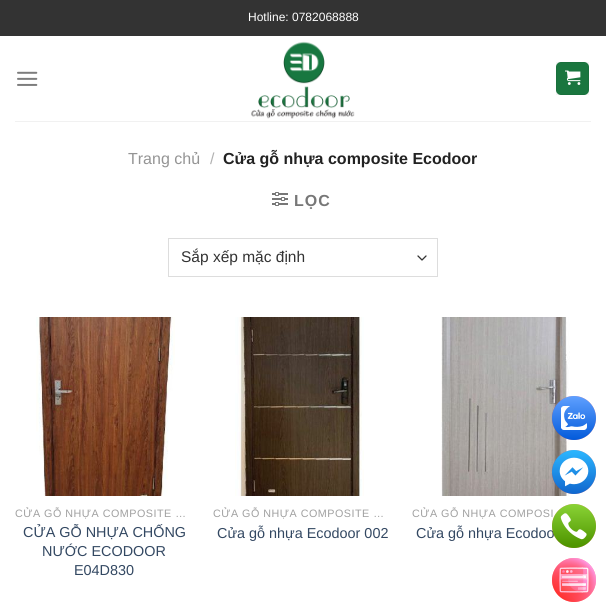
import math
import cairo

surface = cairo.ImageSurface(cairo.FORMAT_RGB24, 606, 612)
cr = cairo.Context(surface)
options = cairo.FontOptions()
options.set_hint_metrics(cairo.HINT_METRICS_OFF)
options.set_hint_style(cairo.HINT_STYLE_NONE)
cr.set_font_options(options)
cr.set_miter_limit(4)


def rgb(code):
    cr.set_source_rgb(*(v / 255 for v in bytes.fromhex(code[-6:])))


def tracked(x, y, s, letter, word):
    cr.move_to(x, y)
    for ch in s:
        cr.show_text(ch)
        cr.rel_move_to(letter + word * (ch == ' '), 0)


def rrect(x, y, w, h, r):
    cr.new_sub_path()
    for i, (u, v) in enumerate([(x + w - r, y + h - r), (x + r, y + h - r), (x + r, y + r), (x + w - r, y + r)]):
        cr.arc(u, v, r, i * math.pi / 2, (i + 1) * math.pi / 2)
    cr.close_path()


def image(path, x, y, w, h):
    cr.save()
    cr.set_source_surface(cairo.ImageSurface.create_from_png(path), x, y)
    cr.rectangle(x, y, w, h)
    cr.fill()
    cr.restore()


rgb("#ffffff")
cr.paint()
rgb("#333333")
cr.rectangle(0, 0, 606, 36)
cr.fill()
image("img/1.png", 17, 71, 21, 15)
image("img/2.png", 251, 41, 104, 78)
rgb("#1a763f")
rrect(556, 62, 33, 33, 5)
cr.fill()
cr.rectangle(556.5, 62.5, 32, 32)
cr.set_source_rgba(0, 0, 0, 0.05)
cr.set_line_width(1)
cr.stroke()
image("img/3.png", 565, 70, 16, 15)
rgb("#f1f1f1")
cr.rectangle(15, 121, 576, 1)
cr.fill()
image("img/4.png", 272, 192, 16, 14)
cr.new_path()
cr.move_to(418, 256)
cr.line_to(422, 260)
cr.line_to(426, 256)
rgb("#333333")
cr.set_line_width(1.3)
cr.set_line_cap(cairo.LINE_CAP_ROUND)
cr.set_line_join(cairo.LINE_JOIN_ROUND)
cr.stroke()
cr.rectangle(168.5, 238.5, 269, 38)
rgb("#dddddd")
cr.set_line_width(1)
cr.set_line_cap(cairo.LINE_CAP_BUTT)
cr.set_line_join(cairo.LINE_JOIN_MITER)
cr.stroke()
image("img/5.png", 36, 317, 139, 179)
image("img/6.png", 235, 317, 129, 179)
image("img/7.png", 441, 317, 129, 179)
cr.arc(574, 418, 21.5, 0, 2 * math.pi)
cr.set_source_rgba(1, 0, 0, 0.4)
cr.stroke()
image("img/8.png", 552, 396, 44, 44)
cr.arc(574, 472, 21.5, 0, 2 * math.pi)
cr.stroke()
image("img/9.png", 552, 450, 44, 44)
cr.arc(574, 580, 21.5, 0, 2 * math.pi)
rgb("#ff9999")
cr.stroke()
image("img/11.png", 552, 558, 44, 44)
cr.select_font_face("Liberation Sans")
cr.set_font_size(12)
rgb("#ffffff")
cr.move_to(248, 21)
cr.show_text("Hotline: 0782068888")
cr.set_font_size(16)
rgb("#949494")
cr.move_to(128, 164)
cr.show_text("Trang chủ")
rgb("#b2b2b2")
cr.move_to(210, 164)
cr.show_text("/")
cr.select_font_face("Liberation Sans", cairo.FONT_SLANT_NORMAL, cairo.FONT_WEIGHT_BOLD)
rgb("#222222")
cr.move_to(223, 164)
cr.show_text("Cửa gỗ nhựa composite Ecodoor")
rgb("#777777")
tracked(294, 206, "LỌC", 1, 0)
cr.select_font_face("Liberation Sans")
cr.set_font_size(15.5)
rgb("#333333")
cr.move_to(181, 262)
cr.show_text("Sắp xếp mặc định")
cr.set_font_size(10.75)
rgb("#a0a0a0")
tracked(15, 517, "CỬA GỖ NHỰA COMPOSITE …", 0.5, 0)
cr.set_font_size(14.4)
rgb("#334862")
for x, y, s in [
    (23, 537, "CỬA GỖ NHỰA CHỐNG"),
    (42, 556, "NƯỚC ECODOOR"),
    (74, 575, "E04D830"),
]:
    cr.move_to(x, y)
    cr.show_text(s)
cr.set_font_size(10.75)
rgb("#a0a0a0")
tracked(213, 517, "CỬA GỖ NHỰA COMPOSITE …", 0.5, 0)
cr.set_font_size(14.4)
rgb("#334862")
cr.move_to(217, 538)
cr.show_text("Cửa gỗ nhựa Ecodoor 002")
cr.set_font_size(10.75)
rgb("#a0a0a0")
tracked(412, 517, "CỬA GỖ NHỰA COMPOSI", 0.5, 0)
cr.set_font_size(14.4)
rgb("#334862")
cr.move_to(416, 538)
cr.show_text("Cửa gỗ nhựa Ecodoo")
cr.new_path()
cr.arc(574, 526, 21.5, 0, 2 * math.pi)
cr.set_source_rgba(1, 0, 0, 0.4)
cr.stroke()
image("img/10.png", 552, 504, 44, 44)
surface.write_to_png("page.png")
